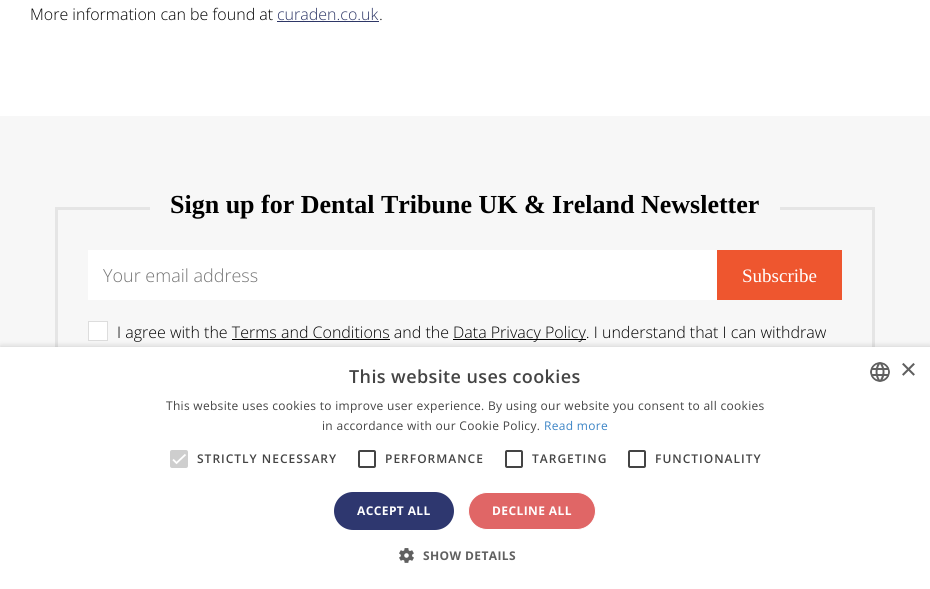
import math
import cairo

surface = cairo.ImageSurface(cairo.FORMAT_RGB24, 930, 589)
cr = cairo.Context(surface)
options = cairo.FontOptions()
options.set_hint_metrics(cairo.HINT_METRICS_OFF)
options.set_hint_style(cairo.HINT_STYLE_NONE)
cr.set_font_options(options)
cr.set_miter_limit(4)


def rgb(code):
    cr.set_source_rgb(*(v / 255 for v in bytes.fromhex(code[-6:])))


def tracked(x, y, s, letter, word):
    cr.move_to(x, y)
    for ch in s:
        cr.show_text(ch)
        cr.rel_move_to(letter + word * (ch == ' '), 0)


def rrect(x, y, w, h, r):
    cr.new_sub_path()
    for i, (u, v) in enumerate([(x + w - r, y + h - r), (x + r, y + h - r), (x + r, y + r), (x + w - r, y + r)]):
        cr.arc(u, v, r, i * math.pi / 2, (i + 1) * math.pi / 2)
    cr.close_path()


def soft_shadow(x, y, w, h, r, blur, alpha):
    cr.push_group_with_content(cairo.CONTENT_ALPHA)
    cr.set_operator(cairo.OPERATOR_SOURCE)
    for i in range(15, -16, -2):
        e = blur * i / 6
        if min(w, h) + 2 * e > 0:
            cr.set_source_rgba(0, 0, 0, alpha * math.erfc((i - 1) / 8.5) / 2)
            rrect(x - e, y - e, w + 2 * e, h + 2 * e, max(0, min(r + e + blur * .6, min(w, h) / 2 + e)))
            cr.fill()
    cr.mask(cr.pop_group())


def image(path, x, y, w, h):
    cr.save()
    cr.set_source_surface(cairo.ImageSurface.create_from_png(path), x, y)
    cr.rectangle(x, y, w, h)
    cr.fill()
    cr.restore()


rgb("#ffffff")
cr.paint()
rgb("#2e3767")
cr.rectangle(277, 21, 102, 1)
cr.fill()
rgb("#f7f7f7")
cr.rectangle(0, 116, 930, 231)
cr.fill()
cr.rectangle(56.5, 208.5, 817, 191)
rgb("#e5e5e5")
cr.set_line_width(3)
cr.stroke()
rgb("#f7f7f7")
cr.rectangle(150, 207, 630, 3)
cr.fill()
rgb("#ffffff")
cr.rectangle(88, 250, 629, 50)
cr.fill()
cr.rectangle(88.5, 321.5, 19, 19)
cr.fill_preserve()
rgb("#dddddd")
cr.set_line_width(1)
cr.stroke()
for x, y, w, h, color in [
    (453, 339, 133, 1, "#000000"),
    (232, 339, 158, 1, "#000000"),
    (717, 250, 125, 50, "#ee562f"),
]:
    rgb(color)
    cr.rectangle(x, y, w, h)
    cr.fill()
rgb("#000000")
soft_shadow(1, 349, 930, 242, 0, 4, 0.35)
rgb("#ffffff")
cr.rectangle(0, 347, 930, 242)
cr.fill()
image("img/1.png", 870, 362, 20, 20)
rgb("#cecece")
rrect(170, 450, 18, 18, 2)
cr.fill()
cr.new_path()
cr.move_to(173, 459.5)
cr.line_to(176.5, 463)
cr.line_to(185.5, 454.5)
rgb("#ffffff")
cr.set_line_width(1.8)
cr.stroke()
rrect(359, 451, 16, 16, 1)
rgb("#444444")
cr.set_line_width(2)
cr.stroke()
rrect(506, 451, 16, 16, 1)
cr.stroke()
rrect(629, 451, 16, 16, 1)
cr.stroke()
rgb("#2e376f")
rrect(334, 492, 120, 38, 19)
cr.fill()
rgb("#e06666")
rrect(468.5, 492.5, 127, 37, 18.5)
cr.fill_preserve()
rgb("#ffffff")
cr.set_line_width(1)
cr.stroke()
image("img/2.png", 399, 548, 15, 15)
cr.select_font_face("Open Sans Light")
cr.set_font_size(16)
rgb("#000000")
cr.move_to(30, 20)
cr.show_text("More information can be found at")
rgb("#2e3767")
cr.move_to(277, 20)
cr.show_text("curaden.co.uk")
rgb("#000000")
cr.move_to(379, 20)
cr.show_text(".")
cr.select_font_face("Liberation Serif", cairo.FONT_SLANT_NORMAL, cairo.FONT_WEIGHT_BOLD)
cr.set_font_size(26)
cr.move_to(170, 213)
cr.show_text("Sign up for Dental Tribune UK & Ireland Newsletter")
cr.select_font_face("Open Sans Light")
cr.set_font_size(18)
rgb("#757575")
cr.move_to(103, 282)
cr.show_text("Your email address")
cr.set_font_size(16)
rgb("#000000")
cr.move_to(117, 338)
cr.show_text("I agree with the Terms and Conditions and the")
cr.move_to(453, 338)
cr.show_text("Data Privacy Policy. I understand that I can withdraw")
cr.select_font_face("Liberation Serif")
cr.set_font_size(19)
rgb("#ffffff")
cr.move_to(742, 282)
cr.show_text("Subscribe")
cr.select_font_face("Open Sans SemiBold")
cr.set_font_size(18)
rgb("#444444")
tracked(349, 383, "This website uses cookies", 0.4, 0)
cr.select_font_face("Liberation Sans")
cr.set_font_size(29)
rgb("#606060")
cr.move_to(900, 379)
cr.show_text("×")
cr.select_font_face("Open Sans")
cr.set_font_size(12)
rgb("#444444")
tracked(166, 410, "This website uses cookies to improve user experience. By using our website you consent to all cookies", 0.3, 0)
tracked(322, 430, "in accordance with our Cookie Policy.", 0.3, 0)
rgb("#3d85c6")
tracked(544, 430, "Read more", 0.3, 0)
cr.select_font_face("Open Sans SemiBold")
rgb("#444444")
for x, y, s in [
    (197, 463, "STRICTLY NECESSARY"),
    (385, 463, "PERFORMANCE"),
    (532, 463, "TARGETING"),
    (655, 463, "FUNCTIONALITY"),
]:
    tracked(x, y, s, 1, 0)
cr.select_font_face("Open Sans", cairo.FONT_SLANT_NORMAL, cairo.FONT_WEIGHT_BOLD)
rgb("#ffffff")
tracked(357, 515, "ACCEPT ALL", 0.4, 0)
tracked(492, 515, "DECLINE ALL", 0.4, 0)
rgb("#606060")
tracked(423, 560, "SHOW DETAILS", 0.4, 0)
surface.write_to_png("page.png")
